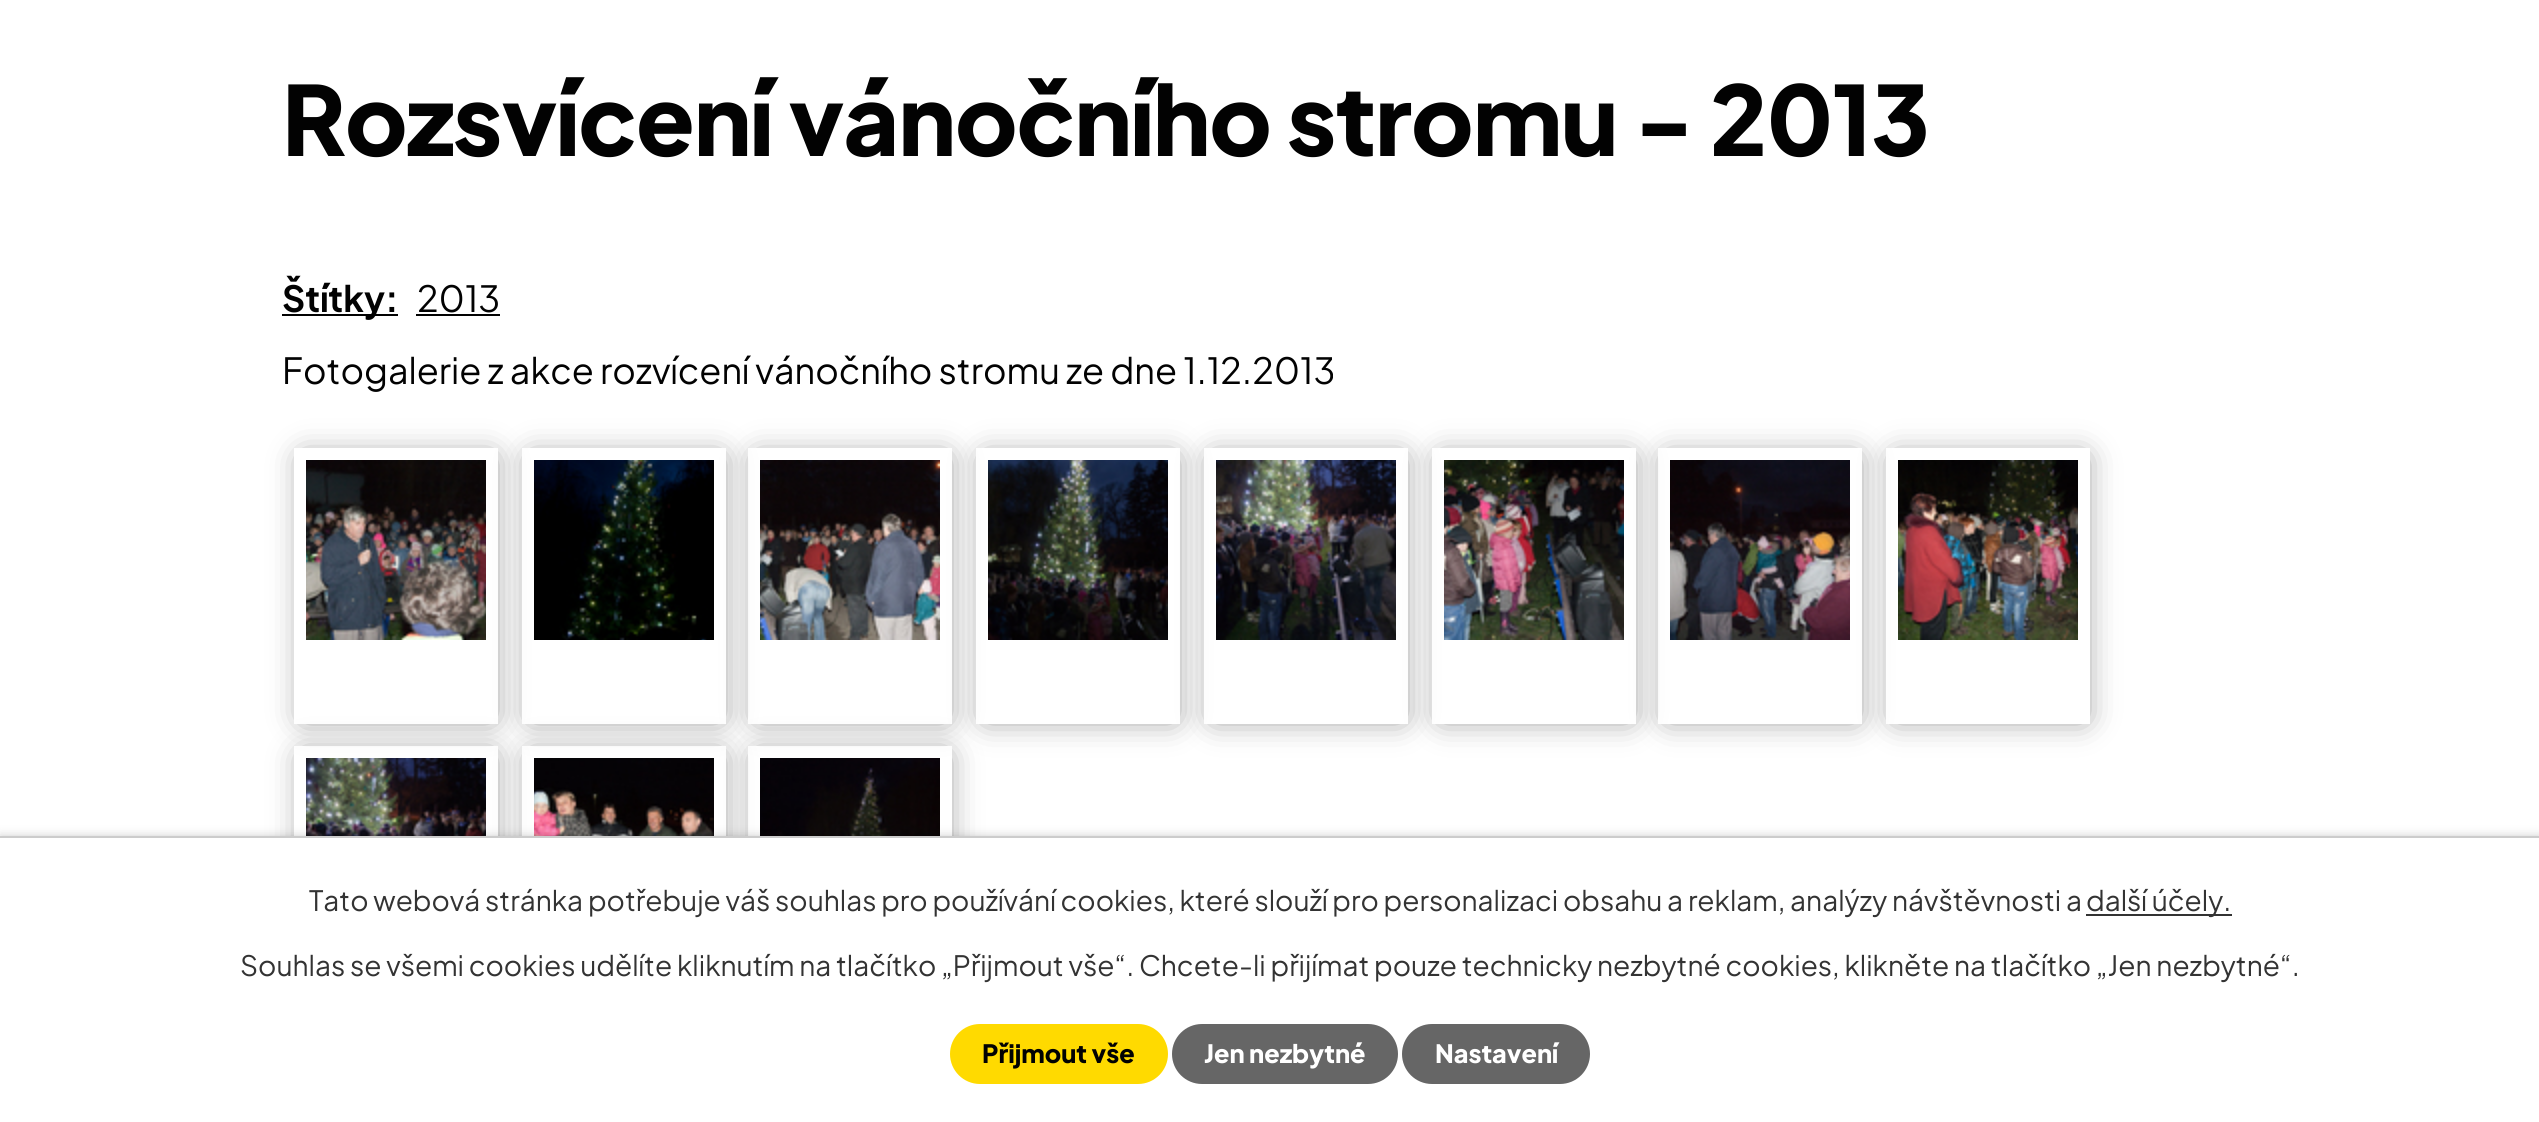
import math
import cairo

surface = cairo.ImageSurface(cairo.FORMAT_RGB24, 2539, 1122)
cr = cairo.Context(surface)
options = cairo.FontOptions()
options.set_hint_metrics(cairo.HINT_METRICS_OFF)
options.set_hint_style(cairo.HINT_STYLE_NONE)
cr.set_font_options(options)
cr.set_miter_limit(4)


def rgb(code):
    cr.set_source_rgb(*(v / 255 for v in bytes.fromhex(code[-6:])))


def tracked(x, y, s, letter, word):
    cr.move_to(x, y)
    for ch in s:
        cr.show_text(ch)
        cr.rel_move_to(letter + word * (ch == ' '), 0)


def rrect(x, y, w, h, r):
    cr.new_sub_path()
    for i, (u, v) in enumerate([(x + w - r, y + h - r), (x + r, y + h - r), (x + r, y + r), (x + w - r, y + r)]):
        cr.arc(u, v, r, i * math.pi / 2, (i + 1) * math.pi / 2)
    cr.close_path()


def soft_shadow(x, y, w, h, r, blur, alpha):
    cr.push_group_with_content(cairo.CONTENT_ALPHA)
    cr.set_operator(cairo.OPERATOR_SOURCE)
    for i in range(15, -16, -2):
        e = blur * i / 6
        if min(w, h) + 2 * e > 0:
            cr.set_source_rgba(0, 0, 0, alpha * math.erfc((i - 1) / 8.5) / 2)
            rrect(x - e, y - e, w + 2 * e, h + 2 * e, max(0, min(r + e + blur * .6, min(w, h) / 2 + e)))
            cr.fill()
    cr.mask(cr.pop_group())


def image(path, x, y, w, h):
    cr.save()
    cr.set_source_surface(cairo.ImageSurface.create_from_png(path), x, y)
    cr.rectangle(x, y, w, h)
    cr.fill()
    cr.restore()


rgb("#ffffff")
cr.paint()
rgb("#020202")
cr.rectangle(282, 314, 116, 2)
cr.fill()
cr.rectangle(416, 314, 84, 2)
cr.fill()
cr.save()
cr.set_fill_rule(cairo.FILL_RULE_EVEN_ODD)
cr.new_path()
cr.move_to(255, 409)
cr.line_to(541, 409)
cr.line_to(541, 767)
cr.line_to(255, 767)
cr.close_path()
cr.move_to(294, 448)
cr.line_to(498, 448)
cr.line_to(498, 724)
cr.line_to(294, 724)
cr.close_path()
cr.clip()
rgb("#888888")
soft_shadow(304, 458, 188, 260, 0, 16, 1)
cr.restore()
image("img/1.png", 306, 460, 180, 180)
cr.save()
cr.set_fill_rule(cairo.FILL_RULE_EVEN_ODD)
cr.new_path()
cr.move_to(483, 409)
cr.line_to(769, 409)
cr.line_to(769, 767)
cr.line_to(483, 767)
cr.close_path()
cr.move_to(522, 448)
cr.line_to(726, 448)
cr.line_to(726, 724)
cr.line_to(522, 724)
cr.close_path()
cr.clip()
rgb("#888888")
soft_shadow(532, 458, 188, 260, 0, 16, 1)
cr.restore()
image("img/2.png", 534, 460, 180, 180)
cr.save()
cr.set_fill_rule(cairo.FILL_RULE_EVEN_ODD)
cr.new_path()
cr.move_to(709, 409)
cr.line_to(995, 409)
cr.line_to(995, 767)
cr.line_to(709, 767)
cr.close_path()
cr.move_to(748, 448)
cr.line_to(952, 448)
cr.line_to(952, 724)
cr.line_to(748, 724)
cr.close_path()
cr.clip()
rgb("#888888")
soft_shadow(758, 458, 188, 260, 0, 16, 1)
cr.restore()
image("img/3.png", 760, 460, 180, 180)
cr.save()
cr.set_fill_rule(cairo.FILL_RULE_EVEN_ODD)
cr.new_path()
cr.move_to(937, 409)
cr.line_to(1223, 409)
cr.line_to(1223, 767)
cr.line_to(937, 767)
cr.close_path()
cr.move_to(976, 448)
cr.line_to(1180, 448)
cr.line_to(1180, 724)
cr.line_to(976, 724)
cr.close_path()
cr.clip()
rgb("#888888")
soft_shadow(986, 458, 188, 260, 0, 16, 1)
cr.restore()
image("img/4.png", 988, 460, 180, 180)
cr.save()
cr.set_fill_rule(cairo.FILL_RULE_EVEN_ODD)
cr.new_path()
cr.move_to(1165, 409)
cr.line_to(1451, 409)
cr.line_to(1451, 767)
cr.line_to(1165, 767)
cr.close_path()
cr.move_to(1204, 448)
cr.line_to(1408, 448)
cr.line_to(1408, 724)
cr.line_to(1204, 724)
cr.close_path()
cr.clip()
rgb("#888888")
soft_shadow(1214, 458, 188, 260, 0, 16, 1)
cr.restore()
image("img/5.png", 1216, 460, 180, 180)
cr.save()
cr.set_fill_rule(cairo.FILL_RULE_EVEN_ODD)
cr.new_path()
cr.move_to(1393, 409)
cr.line_to(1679, 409)
cr.line_to(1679, 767)
cr.line_to(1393, 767)
cr.close_path()
cr.move_to(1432, 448)
cr.line_to(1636, 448)
cr.line_to(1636, 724)
cr.line_to(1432, 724)
cr.close_path()
cr.clip()
rgb("#888888")
soft_shadow(1442, 458, 188, 260, 0, 16, 1)
cr.restore()
image("img/6.png", 1444, 460, 180, 180)
cr.save()
cr.set_fill_rule(cairo.FILL_RULE_EVEN_ODD)
cr.new_path()
cr.move_to(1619, 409)
cr.line_to(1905, 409)
cr.line_to(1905, 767)
cr.line_to(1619, 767)
cr.close_path()
cr.move_to(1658, 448)
cr.line_to(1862, 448)
cr.line_to(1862, 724)
cr.line_to(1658, 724)
cr.close_path()
cr.clip()
rgb("#888888")
soft_shadow(1668, 458, 188, 260, 0, 16, 1)
cr.restore()
image("img/7.png", 1670, 460, 180, 180)
cr.save()
cr.set_fill_rule(cairo.FILL_RULE_EVEN_ODD)
cr.new_path()
cr.move_to(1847, 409)
cr.line_to(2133, 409)
cr.line_to(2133, 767)
cr.line_to(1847, 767)
cr.close_path()
cr.move_to(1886, 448)
cr.line_to(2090, 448)
cr.line_to(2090, 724)
cr.line_to(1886, 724)
cr.close_path()
cr.clip()
rgb("#888888")
soft_shadow(1896, 458, 188, 260, 0, 16, 1)
cr.restore()
image("img/8.png", 1898, 460, 180, 180)
cr.save()
cr.set_fill_rule(cairo.FILL_RULE_EVEN_ODD)
cr.new_path()
cr.move_to(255, 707)
cr.line_to(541, 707)
cr.line_to(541, 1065)
cr.line_to(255, 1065)
cr.close_path()
cr.move_to(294, 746)
cr.line_to(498, 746)
cr.line_to(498, 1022)
cr.line_to(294, 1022)
cr.close_path()
cr.clip()
rgb("#888888")
soft_shadow(304, 756, 188, 260, 0, 16, 1)
cr.restore()
image("img/9.png", 306, 758, 180, 78)
cr.save()
cr.set_fill_rule(cairo.FILL_RULE_EVEN_ODD)
cr.new_path()
cr.move_to(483, 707)
cr.line_to(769, 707)
cr.line_to(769, 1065)
cr.line_to(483, 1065)
cr.close_path()
cr.move_to(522, 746)
cr.line_to(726, 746)
cr.line_to(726, 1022)
cr.line_to(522, 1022)
cr.close_path()
cr.clip()
rgb("#888888")
soft_shadow(532, 756, 188, 260, 0, 16, 1)
cr.restore()
image("img/10.png", 534, 758, 180, 78)
cr.save()
cr.set_fill_rule(cairo.FILL_RULE_EVEN_ODD)
cr.new_path()
cr.move_to(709, 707)
cr.line_to(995, 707)
cr.line_to(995, 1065)
cr.line_to(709, 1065)
cr.close_path()
cr.move_to(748, 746)
cr.line_to(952, 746)
cr.line_to(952, 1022)
cr.line_to(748, 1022)
cr.close_path()
cr.clip()
rgb("#888888")
soft_shadow(758, 756, 188, 260, 0, 16, 1)
cr.restore()
image("img/11.png", 760, 758, 180, 78)
rgb("#000000")
soft_shadow(0, 836, 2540, 286, 0, 5, 0.2)
for x, y, w, h, color in [
    (0, 838, 2539, 284, "#ffffff"),
    (0, 836, 2539, 2, "#cccccc"),
    (2086, 914, 146, 2, "#333333"),
]:
    rgb(color)
    cr.rectangle(x, y, w, h)
    cr.fill()
rgb("#ffda00")
rrect(950, 1024, 218, 60, 30)
cr.fill()
rgb("#666666")
rrect(1172, 1024, 226, 60, 30)
cr.fill()
rrect(1402, 1024, 188, 60, 30)
cr.fill()
cr.select_font_face("Plus Jakarta Sans ExtraBold")
cr.set_font_size(96.1)
rgb("#020202")
tracked(282, 156, "Rozsvícení vánočního stromu - 2013", -1, 0)
cr.select_font_face("Plus Jakarta Sans", cairo.FONT_SLANT_NORMAL, cairo.FONT_WEIGHT_BOLD)
cr.set_font_size(36)
cr.move_to(282, 312)
cr.show_text("Štítky:")
cr.select_font_face("Plus Jakarta Sans")
cr.move_to(417, 312)
cr.show_text("2013")
cr.move_to(282, 384)
cr.show_text("Fotogalerie z akce rozvícení vánočního stromu ze dne 1.12.2013")
cr.set_font_size(28)
rgb("#333333")
for x, y, s in [
    (309, 911, "Tato webová stránka potřebuje váš souhlas pro používání cookies, které slouží pro personalizaci obsahu a reklam, analýzy návštěvnosti a"),
    (2086, 911, "další účely."),
    (240, 976, "Souhlas se všemi cookies udělíte kliknutím na tlačítko „Přijmout vše“. Chcete-li přijímat pouze technicky nezbytné cookies, klikněte na tlačítko „Jen nezbytné“."),
]:
    cr.move_to(x, y)
    cr.show_text(s)
cr.select_font_face("Plus Jakarta Sans ExtraBold")
cr.set_font_size(25.25)
rgb("#020202")
cr.move_to(982, 1063)
cr.show_text("Přijmout vše")
rgb("#ffffff")
cr.move_to(1204, 1063)
cr.show_text("Jen nezbytné")
cr.move_to(1435, 1063)
cr.show_text("Nastavení")
surface.write_to_png("page.png")
